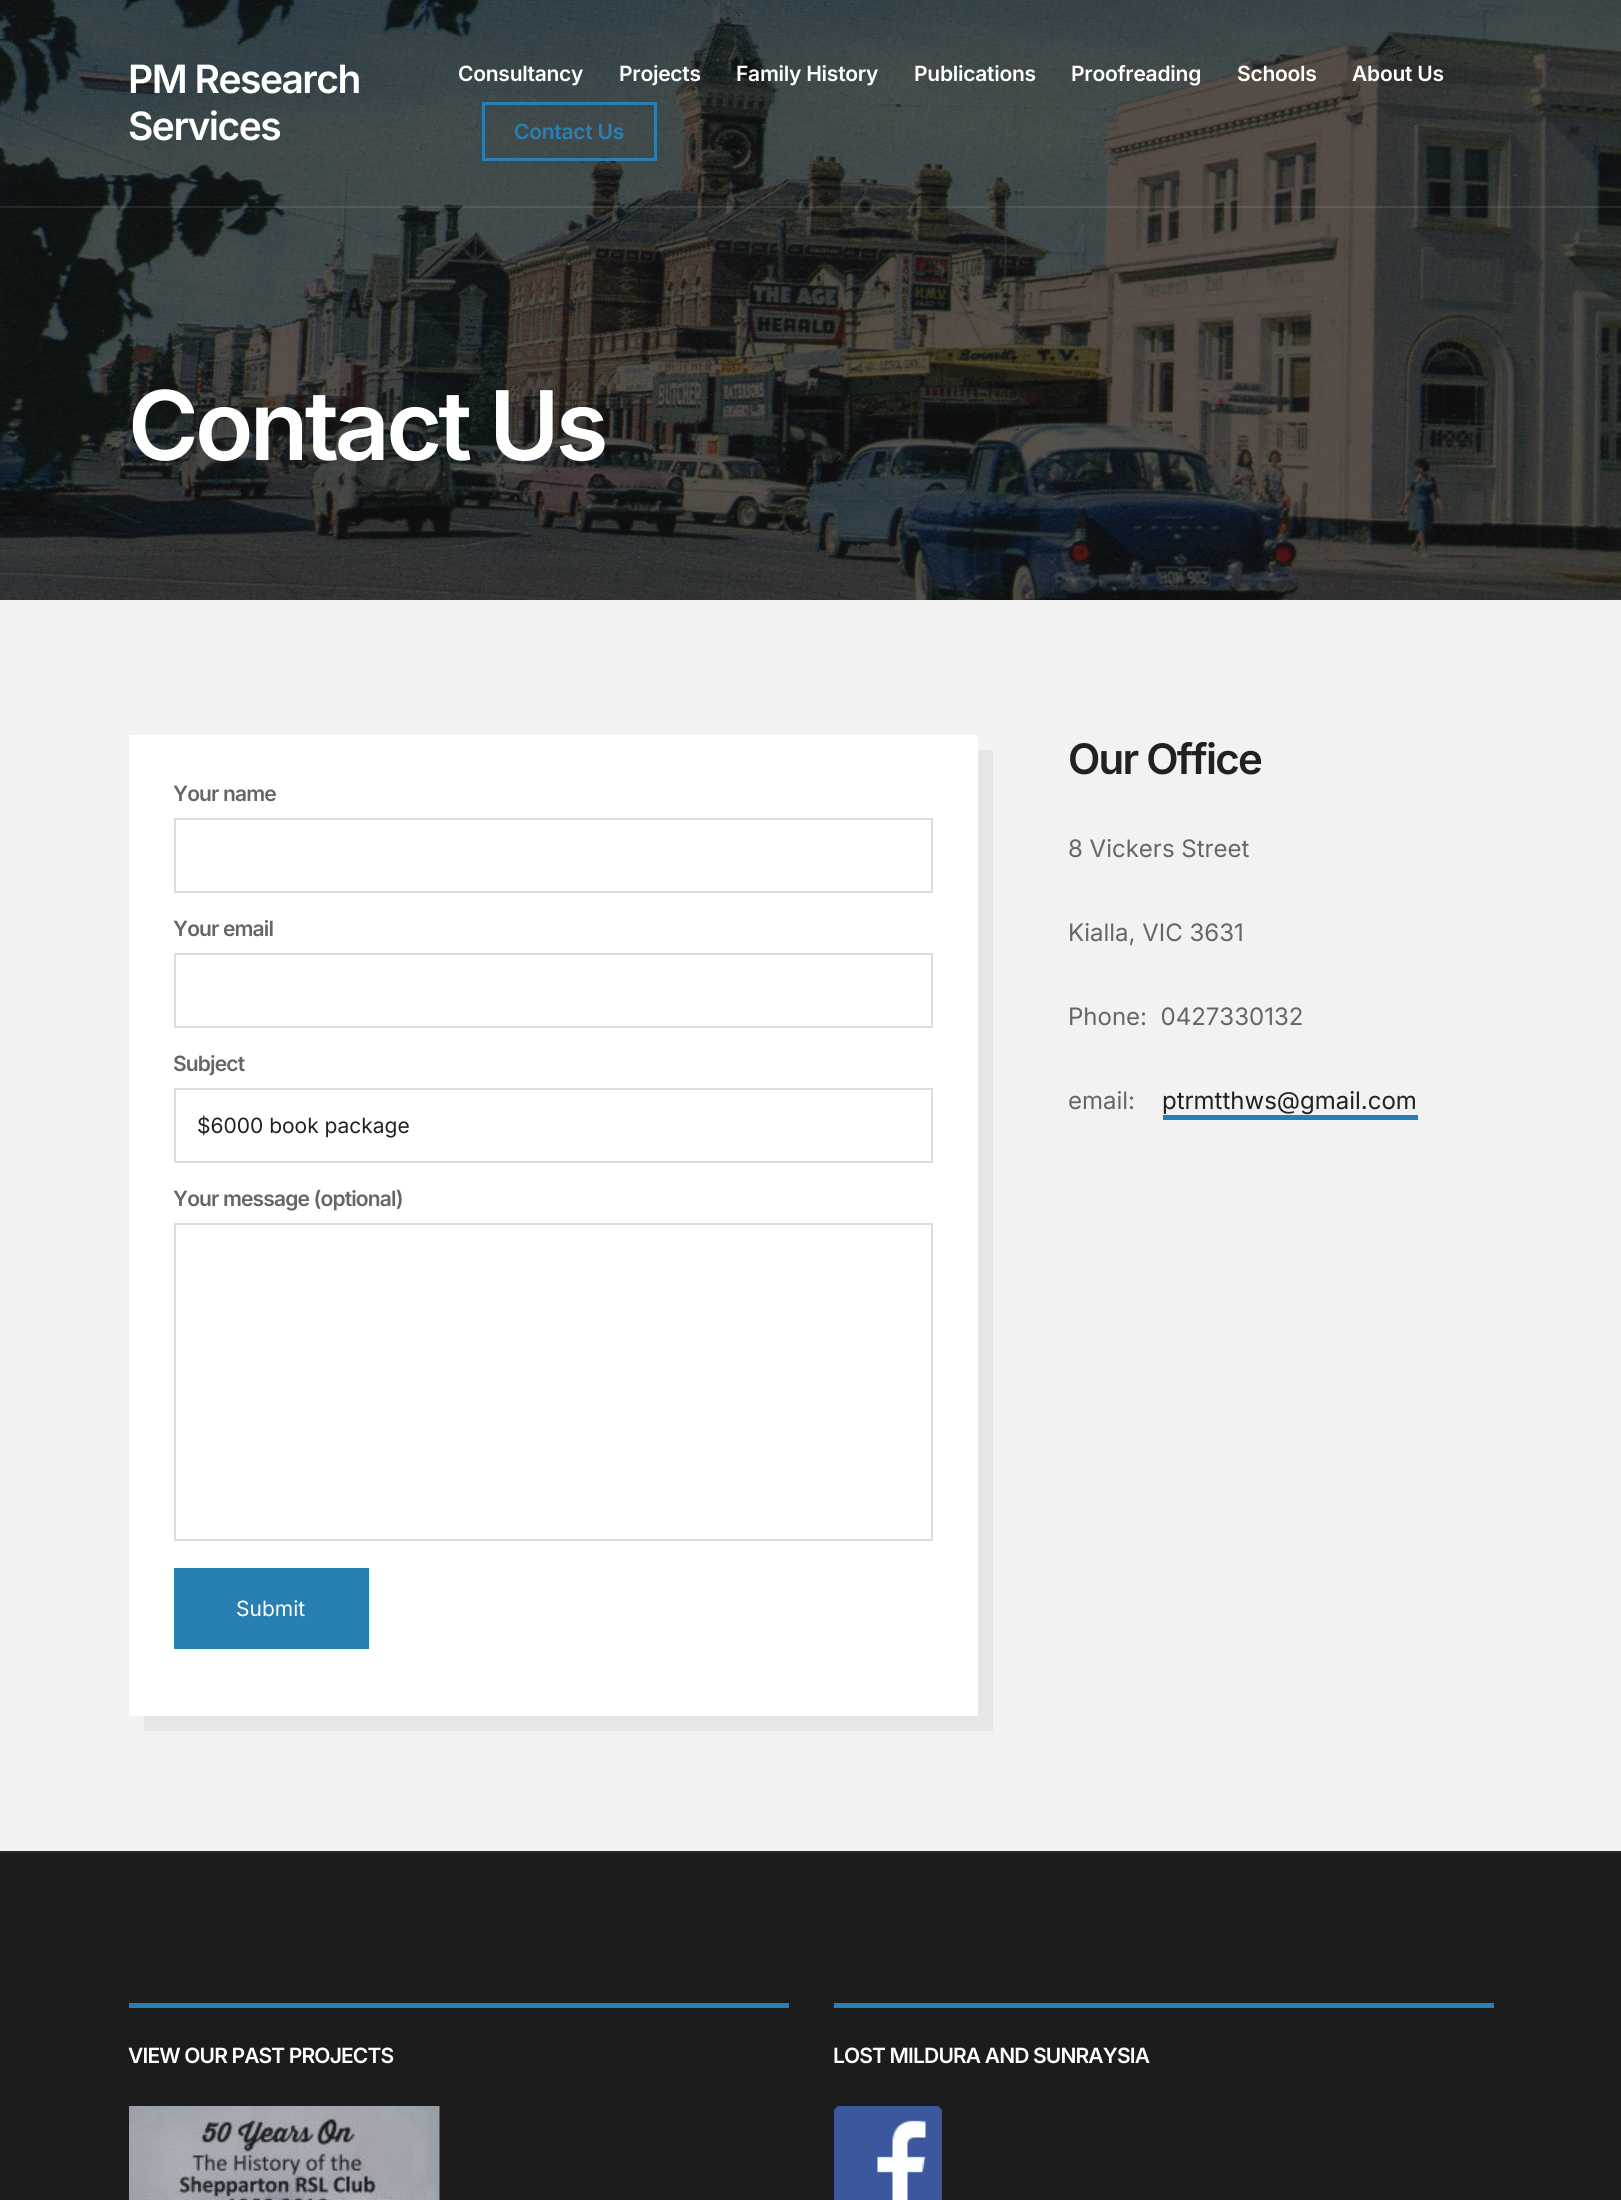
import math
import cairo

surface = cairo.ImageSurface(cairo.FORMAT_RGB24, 1621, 2200)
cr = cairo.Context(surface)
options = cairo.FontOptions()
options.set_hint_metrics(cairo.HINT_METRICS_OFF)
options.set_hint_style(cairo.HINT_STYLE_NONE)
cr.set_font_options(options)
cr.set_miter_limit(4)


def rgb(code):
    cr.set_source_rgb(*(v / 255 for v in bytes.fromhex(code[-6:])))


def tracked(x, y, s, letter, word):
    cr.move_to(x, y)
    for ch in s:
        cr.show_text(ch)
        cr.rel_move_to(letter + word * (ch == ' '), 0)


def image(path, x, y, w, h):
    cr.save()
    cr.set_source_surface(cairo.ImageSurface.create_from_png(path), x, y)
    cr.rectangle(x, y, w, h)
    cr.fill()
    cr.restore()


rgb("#f2f2f2")
cr.paint()
image("img/1.png", 0, 0, 1621, 600)
cr.set_source_rgba(1, 1, 1, 0.09)
cr.rectangle(0, 206, 1621, 2)
cr.fill()
cr.rectangle(483.5, 103.5, 172, 56)
rgb("#277fb2")
cr.set_line_width(3)
cr.stroke()
rgb("#e6e6e6")
cr.new_path()
cr.move_to(144, 1716)
cr.line_to(144, 1731)
cr.line_to(993, 1731)
cr.line_to(993, 750)
cr.line_to(978, 750)
cr.line_to(978, 1716)
cr.close_path()
cr.fill()
rgb("#ffffff")
cr.rectangle(129, 735, 849, 981)
cr.fill()
cr.rectangle(175, 819, 757, 73)
rgb("#dddddd")
cr.set_line_width(2)
cr.stroke()
cr.rectangle(175, 954, 757, 73)
cr.stroke()
cr.rectangle(175, 1089, 757, 73)
cr.stroke()
cr.rectangle(175, 1224, 757, 316)
cr.stroke()
for x, y, w, h, color in [
    (174, 1568, 195, 81, "#277fb2"),
    (1163, 1115, 255, 5, "#277fb2"),
    (0, 1853, 1621, 347, "#1c1c1c"),
    (0, 1851, 1621, 2, "#282828"),
    (129, 2003, 660, 5, "#277fb2"),
]:
    rgb(color)
    cr.rectangle(x, y, w, h)
    cr.fill()
image("img/2.png", 129, 2106, 311, 94)
cr.rectangle(834, 2003, 660, 5)
cr.fill()
image("img/3.png", 834, 2106, 108, 94)
cr.select_font_face("Inter SemiBold")
cr.set_font_size(39)
rgb("#ffffff")
tracked(128, 93, "PM Research", -1.5, 0)
tracked(128, 140, "Services", -1.5, 0)
cr.set_font_size(21)
for x, y, s in [
    (458, 81, "Consultancy"),
    (619, 81, "Projects"),
    (736, 81, "Family History"),
    (914, 81, "Publications"),
    (1071, 81, "Proofreading"),
    (1237, 81, "Schools"),
    (1352, 81, "About Us"),
]:
    tracked(x, y, s, -0.25, 0)
rgb("#277fb2")
tracked(514, 139, "Contact Us", -0.25, 0)
cr.set_font_size(96)
rgb("#ffffff")
tracked(128, 460, "Contact Us", -3.75, 0)
cr.set_font_size(21)
rgb("#666666")
for x, y, s in [
    (173, 801, "Your name"),
    (173, 936, "Your email"),
    (173, 1071, "Subject"),
]:
    tracked(x, y, s, -0.85, 0)
cr.select_font_face("Inter")
rgb("#212121")
cr.move_to(197, 1133)
cr.show_text("$6000 book package")
cr.select_font_face("Inter SemiBold")
rgb("#666666")
tracked(173, 1206, "Your message (optional)", -0.85, 0)
cr.select_font_face("Inter")
rgb("#ffffff")
cr.move_to(236, 1616)
cr.show_text("Submit")
cr.select_font_face("Inter SemiBold")
cr.set_font_size(42)
rgb("#212121")
tracked(1068, 774, "Our Office", -1.75, 0)
cr.select_font_face("Inter")
cr.set_font_size(24)
rgb("#666666")
for x, y, s in [
    (1068, 857, "8 Vickers Street"),
    (1068, 941, "Kialla, VIC 3631"),
    (1068, 1025, "Phone:  0427330132"),
    (1068, 1109, "email:"),
]:
    cr.move_to(x, y)
    cr.show_text(s)
rgb("#212121")
cr.move_to(1162, 1109)
cr.show_text("ptrmtthws@gmail.com")
cr.select_font_face("Inter SemiBold")
cr.set_font_size(21)
rgb("#ffffff")
tracked(128, 2063, "VIEW OUR PAST PROJECTS", -0.85, 0)
tracked(833, 2063, "LOST MILDURA AND SUNRAYSIA", -0.85, 0)
surface.write_to_png("page.png")
